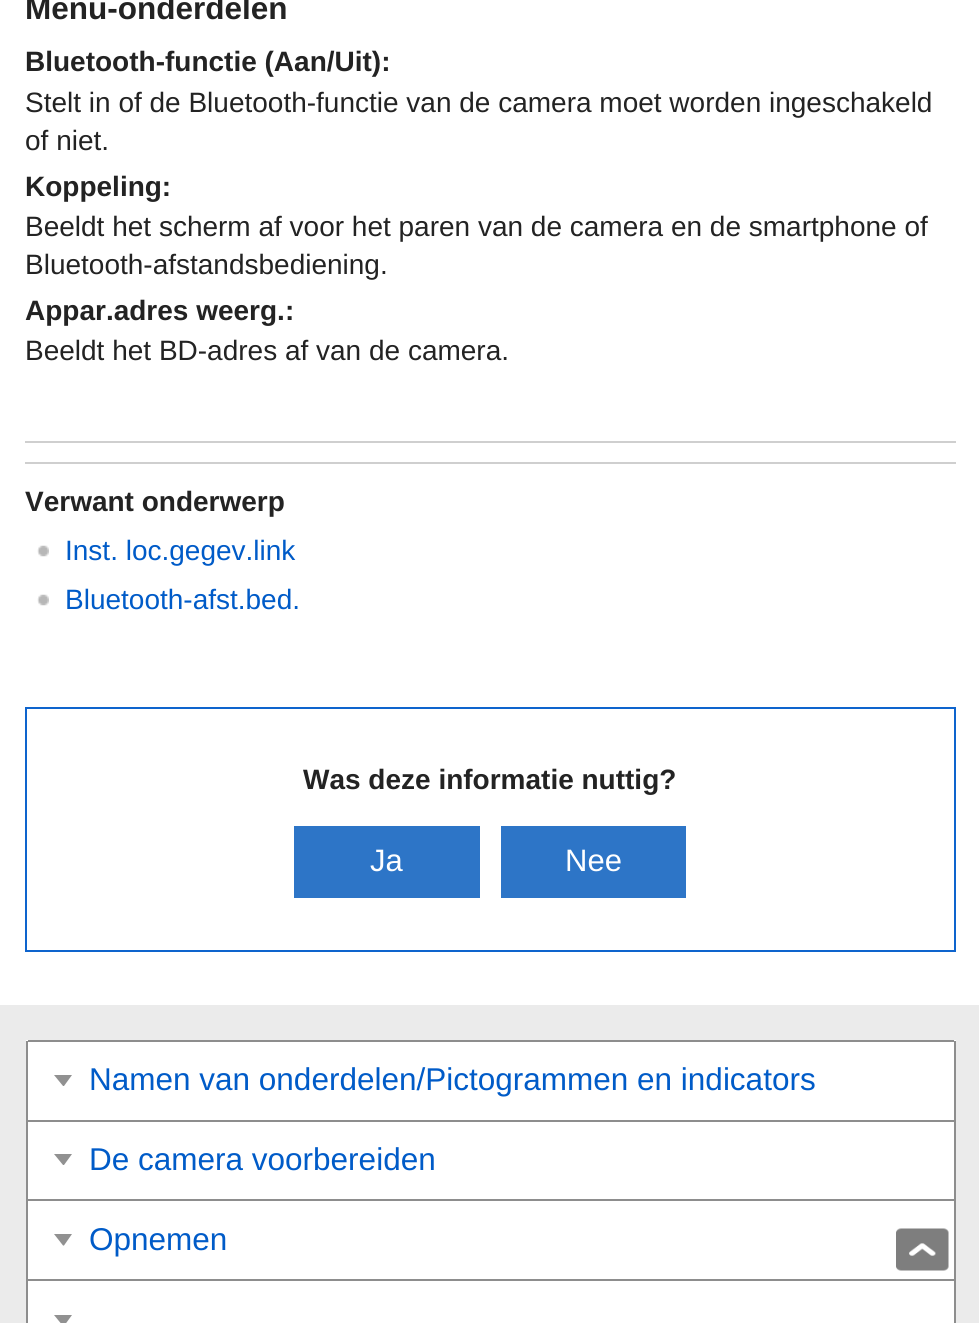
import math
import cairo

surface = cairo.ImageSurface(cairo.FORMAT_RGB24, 979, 1323)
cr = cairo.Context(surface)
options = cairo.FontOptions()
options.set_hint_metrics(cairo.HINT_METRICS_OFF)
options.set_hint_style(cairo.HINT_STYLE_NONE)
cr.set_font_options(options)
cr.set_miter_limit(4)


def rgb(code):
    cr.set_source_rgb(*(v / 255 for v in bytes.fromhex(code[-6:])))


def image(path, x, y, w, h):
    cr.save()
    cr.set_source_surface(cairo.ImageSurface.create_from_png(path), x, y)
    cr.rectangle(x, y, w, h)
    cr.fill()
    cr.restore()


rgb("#ffffff")
cr.paint()
rgb("#cfcfcf")
cr.rectangle(25, 441, 931, 2)
cr.fill()
cr.rectangle(25, 462, 931, 2)
cr.fill()
image("img/1.png", 37, 545, 12, 12)
image("img/1.png", 37, 594, 12, 12)
cr.rectangle(26, 708, 929, 243)
rgb("#0e64cd")
cr.stroke()
for x, y, w, h, color in [
    (294, 826, 186, 72, "#2d75c7"),
    (501, 826, 185, 72, "#2d75c7"),
    (0, 1005, 979, 318, "#ebebeb"),
    (26, 1040, 930, 283, "#ffffff"),
    (28, 1040, 926, 2, "#8d8d8d"),
    (954, 1041, 2, 79, "#8d8d8d"),
    (26, 1041, 2, 79, "#8d8d8d"),
]:
    rgb(color)
    cr.rectangle(x, y, w, h)
    cr.fill()
rgb("#919191")
cr.new_path()
cr.move_to(54, 1075)
cr.line_to(63, 1086)
cr.line_to(64, 1086)
cr.line_to(72, 1075)
cr.close_path()
cr.fill()
for x, y, w, h, color in [
    (26, 1120, 930, 2, "#8d8d8d"),
    (954, 1120, 2, 79, "#8d8d8d"),
    (26, 1120, 2, 79, "#8d8d8d"),
]:
    rgb(color)
    cr.rectangle(x, y, w, h)
    cr.fill()
rgb("#919191")
cr.new_path()
cr.move_to(54, 1154)
cr.line_to(63, 1165)
cr.line_to(64, 1165)
cr.line_to(72, 1154)
cr.close_path()
cr.fill()
for x, y, w, h, color in [
    (26, 1199, 930, 2, "#8d8d8d"),
    (954, 1199, 2, 80, "#8d8d8d"),
    (26, 1199, 2, 80, "#8d8d8d"),
]:
    rgb(color)
    cr.rectangle(x, y, w, h)
    cr.fill()
rgb("#919191")
cr.new_path()
cr.move_to(54, 1234)
cr.line_to(63, 1245.5)
cr.line_to(64, 1245.5)
cr.line_to(72, 1234)
cr.close_path()
cr.fill()
for x, y, w, h, color in [
    (26, 1279, 930, 2, "#8d8d8d"),
    (954, 1279, 2, 44, "#8d8d8d"),
    (26, 1279, 2, 44, "#8d8d8d"),
]:
    rgb(color)
    cr.rectangle(x, y, w, h)
    cr.fill()
rgb("#919191")
cr.new_path()
cr.move_to(54, 1315)
cr.line_to(63, 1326)
cr.line_to(64, 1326)
cr.line_to(72, 1315)
cr.close_path()
cr.fill()
image("img/2.png", 896, 1228, 53, 43)
cr.select_font_face("Liberation Sans", cairo.FONT_SLANT_NORMAL, cairo.FONT_WEIGHT_BOLD)
cr.set_font_size(31.5)
rgb("#232323")
cr.move_to(25, 19)
cr.show_text("Menu-onderdelen")
cr.set_font_size(28)
cr.move_to(25, 71)
cr.show_text("Bluetooth-functie (Aan/Uit):")
cr.select_font_face("Liberation Sans")
cr.move_to(25, 112)
cr.show_text("Stelt in of de Bluetooth-functie van de camera moet worden ingeschakeld")
cr.move_to(25, 150)
cr.show_text("of niet.")
cr.select_font_face("Liberation Sans", cairo.FONT_SLANT_NORMAL, cairo.FONT_WEIGHT_BOLD)
cr.move_to(25, 196)
cr.show_text("Koppeling:")
cr.select_font_face("Liberation Sans")
cr.move_to(25, 236)
cr.show_text("Beeldt het scherm af voor het paren van de camera en de smartphone of")
cr.move_to(25, 274)
cr.show_text("Bluetooth-afstandsbediening.")
cr.select_font_face("Liberation Sans", cairo.FONT_SLANT_NORMAL, cairo.FONT_WEIGHT_BOLD)
cr.move_to(25, 320)
cr.show_text("Appar.adres weerg.:")
cr.select_font_face("Liberation Sans")
cr.move_to(25, 360)
cr.show_text("Beeldt het BD-adres af van de camera.")
cr.select_font_face("Liberation Sans", cairo.FONT_SLANT_NORMAL, cairo.FONT_WEIGHT_BOLD)
cr.move_to(25, 511)
cr.show_text("Verwant onderwerp")
cr.select_font_face("Liberation Sans")
rgb("#005bc8")
cr.move_to(65, 560)
cr.show_text("Inst. loc.gegev.link")
cr.move_to(65, 609)
cr.show_text("Bluetooth-afst.bed.")
cr.select_font_face("Liberation Sans", cairo.FONT_SLANT_NORMAL, cairo.FONT_WEIGHT_BOLD)
rgb("#232323")
cr.move_to(303, 789)
cr.show_text("Was deze informatie nuttig?")
cr.select_font_face("Liberation Sans")
cr.set_font_size(31)
rgb("#ffffff")
cr.move_to(370, 871)
cr.show_text("Ja")
cr.move_to(565, 871)
cr.show_text("Nee")
cr.set_font_size(31.5)
rgb("#005bc8")
for x, y, s in [
    (89, 1090, "Namen van onderdelen/Pictogrammen en indicators"),
    (89, 1170, "De camera voorbereiden"),
    (89, 1250, "Opnemen"),
]:
    cr.move_to(x, y)
    cr.show_text(s)
surface.write_to_png("page.png")
